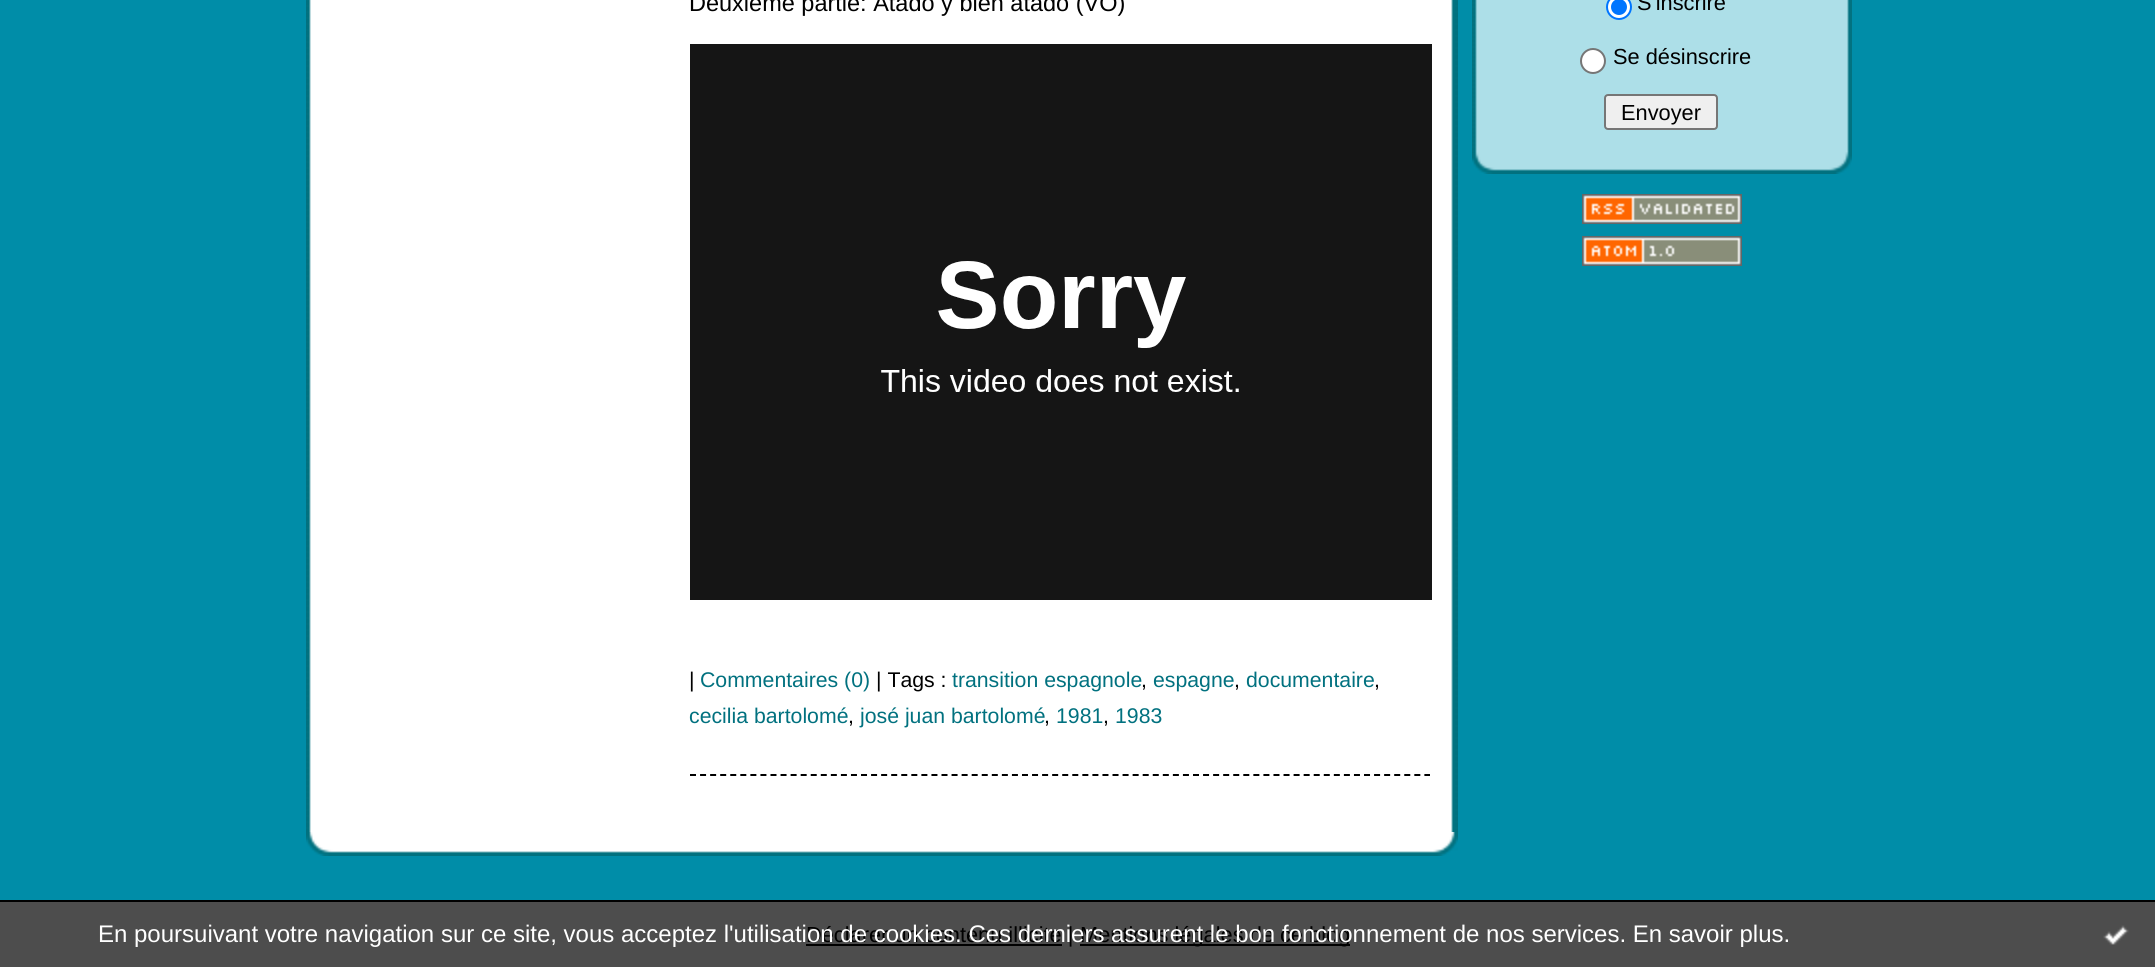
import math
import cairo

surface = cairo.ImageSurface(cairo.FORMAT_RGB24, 2155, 967)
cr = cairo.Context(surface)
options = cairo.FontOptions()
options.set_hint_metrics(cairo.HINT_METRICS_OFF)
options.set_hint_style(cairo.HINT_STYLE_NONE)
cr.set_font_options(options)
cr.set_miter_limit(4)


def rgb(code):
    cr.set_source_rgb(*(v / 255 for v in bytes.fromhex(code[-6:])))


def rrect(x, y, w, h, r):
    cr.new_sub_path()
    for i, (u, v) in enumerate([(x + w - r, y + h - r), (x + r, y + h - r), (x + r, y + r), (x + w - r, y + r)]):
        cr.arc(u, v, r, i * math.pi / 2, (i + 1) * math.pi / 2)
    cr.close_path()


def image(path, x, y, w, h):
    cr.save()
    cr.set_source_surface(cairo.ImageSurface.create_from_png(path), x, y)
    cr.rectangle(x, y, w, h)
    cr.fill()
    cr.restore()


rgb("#008da8")
cr.paint()
image("img/1.png", 306, 0, 1152, 832)
image("img/2.png", 306, 832, 1152, 24)
image("img/3.png", 690, 44, 742, 556)
cr.new_path()
cr.move_to(690, 775)
cr.line_to(1430, 775)
rgb("#000000")
cr.set_dash([6, 4.06])
cr.stroke()
image("img/4.png", 1472, 0, 380, 152)
image("img/5.png", 1472, 152, 380, 22)
rgb("#ffffff")
cr.arc(1619, 7, 12, 0, 2 * math.pi)
cr.fill_preserve()
rgb("#0075ff")
cr.set_dash([])
cr.stroke()
cr.arc(1619, 7, 8, 0, 2 * math.pi)
cr.fill()
rgb("#ffffff")
cr.arc(1593, 61, 12, 0, 2 * math.pi)
cr.fill_preserve()
rgb("#767676")
cr.stroke()
rgb("#efefef")
rrect(1605, 95, 112, 34, 3)
cr.fill_preserve()
rgb("#767676")
cr.stroke()
image("img/6.png", 1582, 194, 160, 30)
image("img/7.png", 1582, 236, 160, 30)
rgb("#4d4d4d")
cr.rectangle(0, 902, 2155, 65)
cr.fill()
image("img/8.png", 2103, 925, 26, 20)
for x, y, w, h, color in [
    (0, 900, 2155, 2, "#000000"),
    (806, 944, 256, 2, "#000000"),
    (1080, 944, 270, 2, "#000000"),
]:
    rgb(color)
    cr.rectangle(x, y, w, h)
    cr.fill()
cr.select_font_face("Liberation Sans")
cr.set_font_size(23.5)
cr.move_to(689, 11)
cr.show_text("Deuxième partie: Atado y bien atado (VO)")
cr.set_font_size(21.25)
cr.move_to(689, 687)
cr.show_text("|")
rgb("#01717f")
cr.move_to(700, 687)
cr.show_text("Commentaires (0)")
rgb("#000000")
cr.move_to(876, 687)
cr.show_text("| Tags :")
rgb("#01717f")
cr.move_to(952, 687)
cr.show_text("transition espagnole")
rgb("#000000")
cr.move_to(1141, 687)
cr.show_text(",")
rgb("#01717f")
cr.move_to(1153, 687)
cr.show_text("espagne")
rgb("#000000")
cr.move_to(1234, 687)
cr.show_text(",")
rgb("#01717f")
cr.move_to(1246, 687)
cr.show_text("documentaire")
rgb("#000000")
cr.move_to(1374, 687)
cr.show_text(",")
rgb("#01717f")
cr.move_to(689, 723)
cr.show_text("cecilia bartolomé")
rgb("#000000")
cr.move_to(848, 723)
cr.show_text(",")
rgb("#01717f")
cr.move_to(860, 723)
cr.show_text("josé juan bartolomé")
rgb("#000000")
cr.move_to(1044, 723)
cr.show_text(",")
rgb("#01717f")
cr.move_to(1056, 723)
cr.show_text("1981")
rgb("#000000")
cr.move_to(1103, 723)
cr.show_text(",")
rgb("#01717f")
cr.move_to(1115, 723)
cr.show_text("1983")
cr.set_font_size(21.8)
rgb("#000000")
for x, y, s in [
    (1637, 10, "S'inscrire"),
    (1613, 64, "Se désinscrire"),
    (1621, 120, "Envoyer"),
    (806, 942, "Déclarer un contenu illicite |"),
    (1080, 942, "Mentions légales de ce blog"),
]:
    cr.move_to(x, y)
    cr.show_text(s)
cr.set_font_size(24)
rgb("#ffffff")
cr.move_to(98, 942)
cr.show_text("En poursuivant votre navigation sur ce site, vous acceptez l'utilisation de cookies. Ces derniers assurent le bon fonctionnement de nos services. En savoir plus.")
surface.write_to_png("page.png")
